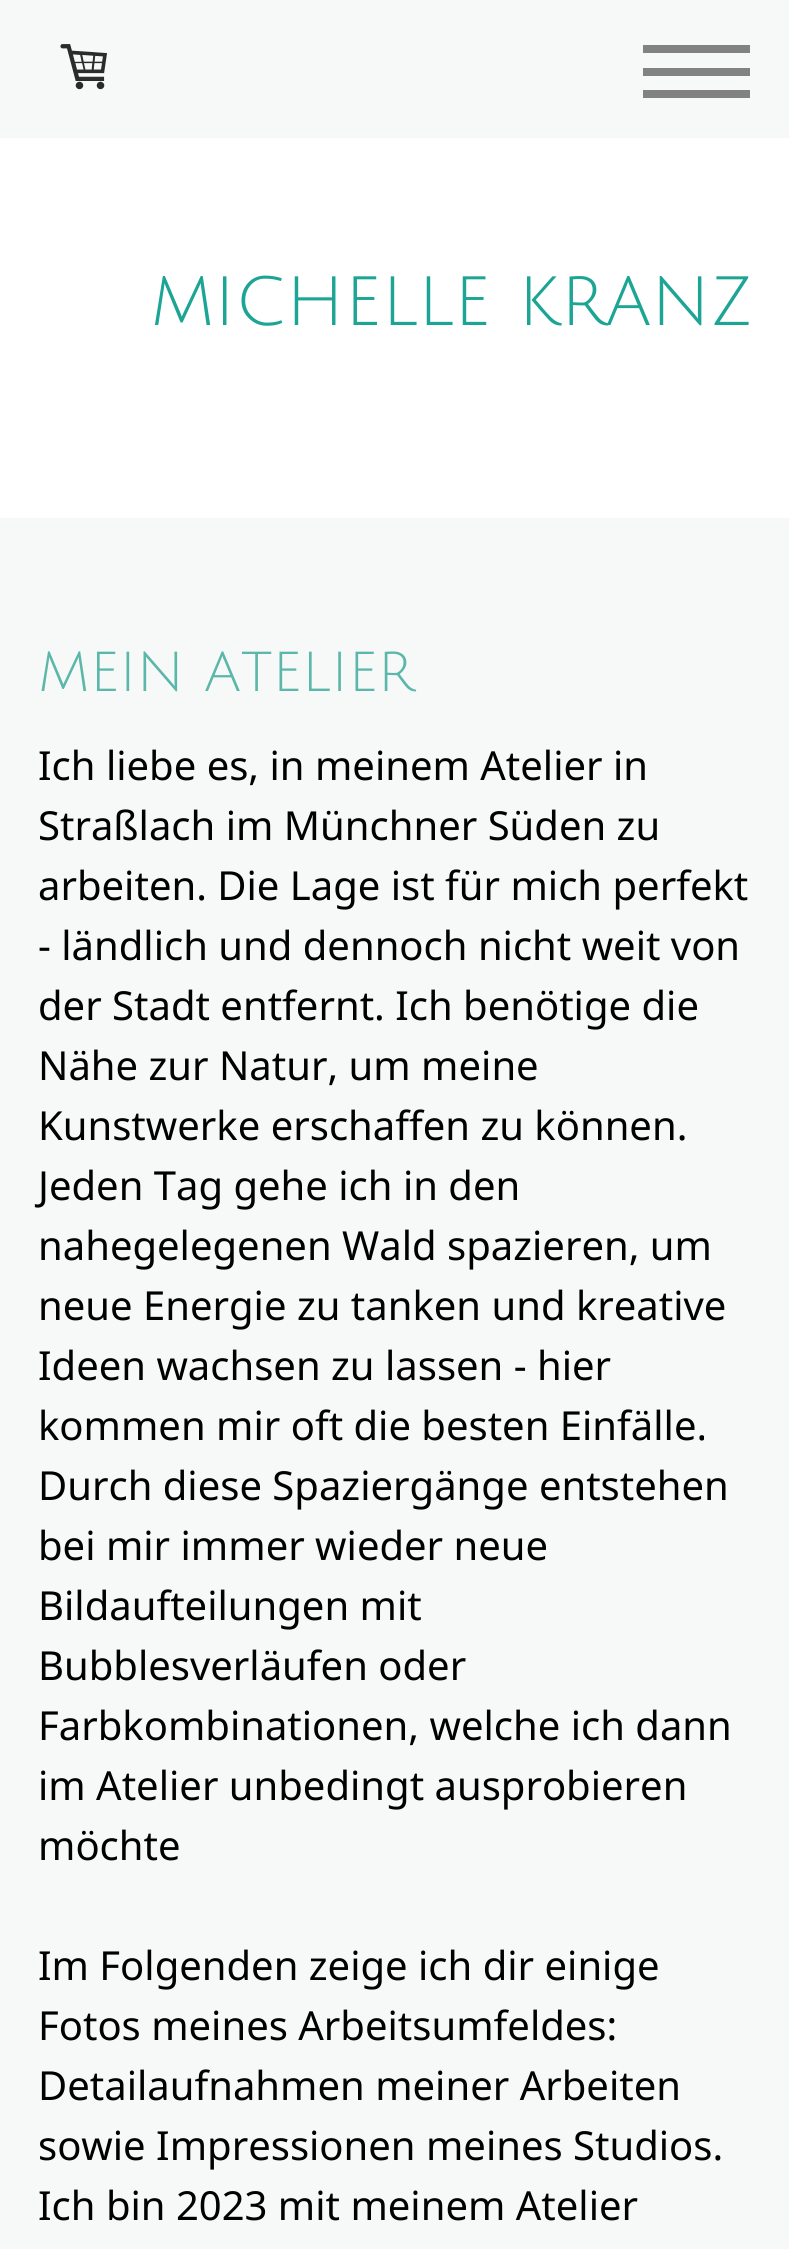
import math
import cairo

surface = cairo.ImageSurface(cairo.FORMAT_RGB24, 789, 2249)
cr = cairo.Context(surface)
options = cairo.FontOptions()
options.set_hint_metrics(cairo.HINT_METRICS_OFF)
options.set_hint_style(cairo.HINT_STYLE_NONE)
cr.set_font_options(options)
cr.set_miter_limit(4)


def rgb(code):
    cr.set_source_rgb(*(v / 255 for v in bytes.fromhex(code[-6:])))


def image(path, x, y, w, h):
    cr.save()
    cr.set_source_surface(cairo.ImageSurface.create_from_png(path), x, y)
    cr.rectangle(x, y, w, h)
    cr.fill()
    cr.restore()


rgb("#ffffff")
cr.paint()
for x, y, w, h, color in [
    (0, 0, 789, 138, "#f7f8f8"),
    (643, 68, 107, 8, "#828282"),
    (643, 45, 107, 8, "#828282"),
    (643, 90, 107, 8, "#828282"),
]:
    rgb(color)
    cr.rectangle(x, y, w, h)
    cr.fill()
image("img/1.png", 60, 44, 47, 46)
rgb("#f7f8f8")
cr.rectangle(0, 518, 789, 1731)
cr.fill()
cr.select_font_face("Julius Sans One")
cr.set_font_size(75)
rgb("#1ca594")
cr.move_to(151, 325)
cr.show_text("michelle kranz")
cr.set_font_size(55)
rgb("#5ab7a9")
cr.move_to(38, 691)
cr.show_text("MEIN ATELIER")
cr.select_font_face("Noto Sans")
cr.set_font_size(40)
rgb("#000000")
for x, y, s in [
    (38, 780, "Ich liebe es, in meinem Atelier in"),
    (38, 840, "Straßlach im Münchner Süden zu"),
    (38, 900, "arbeiten. Die Lage ist für mich perfekt"),
    (38, 960, "- ländlich und dennoch nicht weit von"),
    (38, 1020, "der Stadt entfernt. Ich benötige die"),
    (38, 1080, "Nähe zur Natur, um meine"),
    (38, 1140, "Kunstwerke erschaffen zu können."),
    (38, 1200, "Jeden Tag gehe ich in den"),
    (38, 1260, "nahegelegenen Wald spazieren, um"),
    (38, 1320, "neue Energie zu tanken und kreative"),
    (38, 1380, "Ideen wachsen zu lassen - hier"),
    (38, 1440, "kommen mir oft die besten Einfälle."),
    (38, 1500, "Durch diese Spaziergänge entstehen"),
    (38, 1560, "bei mir immer wieder neue"),
    (38, 1620, "Bildaufteilungen mit"),
    (38, 1680, "Bubblesverläufen oder"),
    (38, 1740, "Farbkombinationen, welche ich dann"),
    (38, 1800, "im Atelier unbedingt ausprobieren"),
    (38, 1860, "möchte"),
    (38, 1980, "Im Folgenden zeige ich dir einige"),
    (38, 2040, "Fotos meines Arbeitsumfeldes:"),
    (38, 2100, "Detailaufnahmen meiner Arbeiten"),
    (38, 2160, "sowie Impressionen meines Studios."),
    (38, 2220, "Ich bin 2023 mit meinem Atelier"),
]:
    cr.move_to(x, y)
    cr.show_text(s)
surface.write_to_png("page.png")
